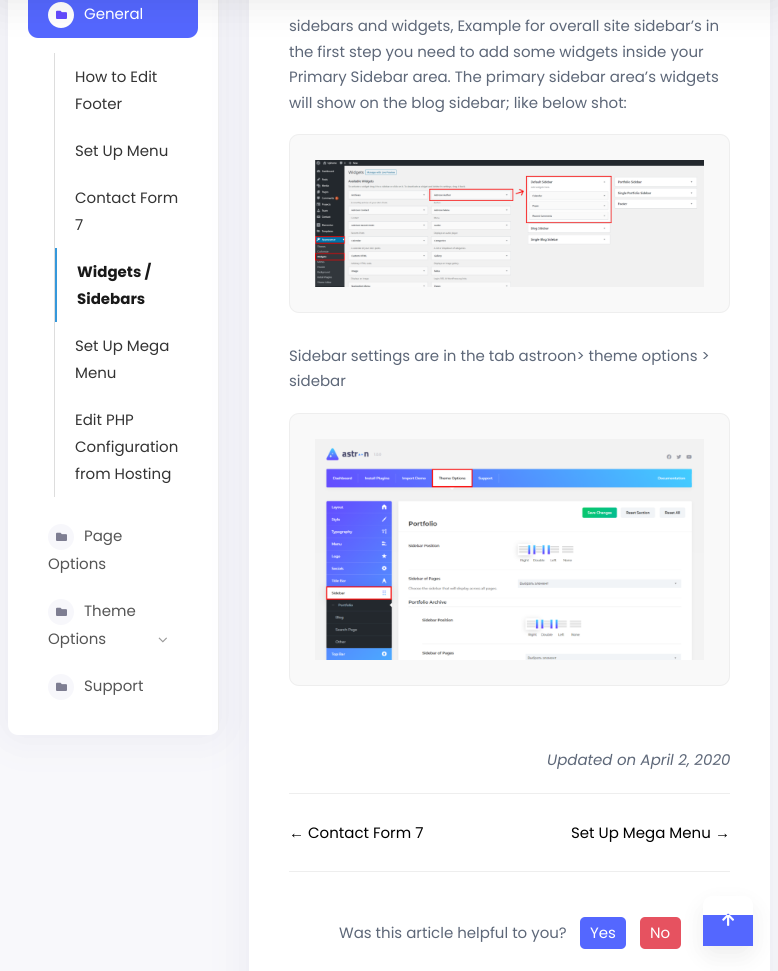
import math
import cairo

surface = cairo.ImageSurface(cairo.FORMAT_RGB24, 778, 971)
cr = cairo.Context(surface)
options = cairo.FontOptions()
options.set_hint_metrics(cairo.HINT_METRICS_OFF)
options.set_hint_style(cairo.HINT_STYLE_NONE)
cr.set_font_options(options)
cr.set_miter_limit(4)


def rgb(code):
    cr.set_source_rgb(*(v / 255 for v in bytes.fromhex(code[-6:])))


def rrect(x, y, w, h, r):
    cr.new_sub_path()
    for i, (u, v) in enumerate([(x + w - r, y + h - r), (x + r, y + h - r), (x + r, y + r), (x + w - r, y + r)]):
        cr.arc(u, v, r, i * math.pi / 2, (i + 1) * math.pi / 2)
    cr.close_path()


def soft_shadow(x, y, w, h, r, blur, alpha):
    cr.push_group_with_content(cairo.CONTENT_ALPHA)
    cr.set_operator(cairo.OPERATOR_SOURCE)
    for i in range(15, -16, -2):
        e = blur * i / 6
        if min(w, h) + 2 * e > 0:
            cr.set_source_rgba(0, 0, 0, alpha * math.erfc((i - 1) / 8.5) / 2)
            rrect(x - e, y - e, w + 2 * e, h + 2 * e, max(0, min(r + e + blur * .6, min(w, h) / 2 + e)))
            cr.fill()
    cr.mask(cr.pop_group())


def image(path, x, y, w, h):
    cr.save()
    cr.set_source_surface(cairo.ImageSurface.create_from_png(path), x, y)
    cr.rectangle(x, y, w, h)
    cr.fill()
    cr.restore()


rgb("#f8f8fb")
cr.paint()
rgb("#5e5c9a")
soft_shadow(8, -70, 211, 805, 10, 20, 0.1)
rgb("#ffffff")
rrect(8, -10, 211, 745, 10)
cr.fill()
rgb("#eeeeee")
cr.rectangle(218, 0, 1, 730)
cr.fill()
rgb("#5e5c9a")
soft_shadow(249, -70, 521, 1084, 10, 20, 0.1)
rgb("#5467ff")
rrect(28, -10, 170, 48, 10)
cr.fill()
rgb("#ffffff")
cr.arc(61, 15, 13, 0, 2 * math.pi)
cr.fill()
image("img/1.png", 56, 10, 11, 9)
rgb("#dddddd")
cr.rectangle(54, 53, 1, 444)
cr.fill()
rgb("#ffffff")
cr.rectangle(249, 0, 521, 971)
cr.fill()
rgb("#000000")
soft_shadow(0, -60, 778, 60, 0, 20, 0.1)
rgb("#3598db")
cr.rectangle(55, 248, 2, 74)
cr.fill()
rgb("#f7f7fb")
cr.arc(61, 537, 13, 0, 2 * math.pi)
cr.fill()
image("img/2.png", 56, 532, 11, 9)
cr.arc(61, 612, 13, 0, 2 * math.pi)
cr.fill()
image("img/2.png", 56, 607, 11, 9)
image("img/3.png", 158, 637, 9, 6)
cr.arc(61, 687, 13, 0, 2 * math.pi)
cr.fill()
image("img/2.png", 56, 682, 11, 9)
rgb("#f9f9f9")
rrect(289.5, 134.5, 440, 178, 9.5)
cr.fill_preserve()
rgb("#eeeeee")
cr.set_line_width(1)
cr.stroke()
image("img/4.png", 315, 160, 389, 127)
rgb("#f9f9f9")
rrect(289.5, 413.5, 440, 272, 9.5)
cr.fill_preserve()
rgb("#eeeeee")
cr.stroke()
image("img/5.png", 315, 439, 389, 221)
cr.rectangle(289, 793, 441, 1)
cr.fill()
cr.rectangle(289, 871, 441, 1)
cr.fill()
rgb("#5467ff")
rrect(580, 917, 46, 32, 5)
cr.fill()
rgb("#e65260")
rrect(640, 917, 41, 32, 5)
cr.fill()
cr.save()
cr.set_fill_rule(cairo.FILL_RULE_EVEN_ODD)
cr.new_path()
cr.move_to(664, 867)
cr.line_to(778, 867)
cr.line_to(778, 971)
cr.line_to(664, 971)
cr.close_path()
cr.move_to(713, 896)
cr.line_to(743, 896)
cr.curve_to(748.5, 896, 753, 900.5, 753, 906)
cr.line_to(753, 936)
cr.curve_to(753, 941.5, 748.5, 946, 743, 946)
cr.line_to(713, 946)
cr.curve_to(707.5, 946, 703, 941.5, 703, 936)
cr.line_to(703, 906)
cr.curve_to(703, 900.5, 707.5, 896, 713, 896)
cr.close_path()
cr.clip()
rgb("#000000")
soft_shadow(703, 906, 50, 50, 10, 12.5, 0.07)
cr.restore()
image("img/6.png", 726, 913, 4, 2)
rgb("#5467ff")
cr.rectangle(703, 915, 50, 31)
cr.fill()
image("img/7.png", 722, 915, 12, 11)
cr.select_font_face("Poppins")
cr.set_font_size(15)
rgb("#ffffff")
cr.move_to(84, 19)
cr.show_text("General")
rgb("#333333")
for x, y, s in [
    (75, 82, "How to Edit"),
    (75, 109, "Footer"),
    (75, 156, "Set Up Menu"),
    (75, 203, "Contact Form"),
    (75, 230, "7"),
]:
    cr.move_to(x, y)
    cr.show_text(s)
cr.select_font_face("Poppins", cairo.FONT_SLANT_NORMAL, cairo.FONT_WEIGHT_BOLD)
rgb("#191919")
cr.move_to(77, 277)
cr.show_text("Widgets /")
cr.move_to(77, 304)
cr.show_text("Sidebars")
cr.select_font_face("Poppins")
rgb("#333333")
for x, y, s in [
    (75, 351, "Set Up Mega"),
    (75, 378, "Menu"),
    (75, 425, "Edit PHP"),
    (75, 452, "Configuration"),
    (75, 479, "from Hosting"),
]:
    cr.move_to(x, y)
    cr.show_text(s)
rgb("#555555")
for x, y, s in [
    (84, 541, "Page"),
    (48, 569, "Options"),
    (84, 616, "Theme"),
    (48, 644, "Options"),
    (84, 691, "Support"),
]:
    cr.move_to(x, y)
    cr.show_text(s)
rgb("#5d6778")
for x, y, s in [
    (289, 31, "sidebars and widgets, Example for overall site sidebar’s in"),
    (289, 57, "the first step you need to add some widgets inside your"),
    (289, 82, "Primary Sidebar area. The primary sidebar area’s widgets"),
    (289, 108, "will show on the blog sidebar; like below shot:"),
    (289, 361, "Sidebar settings are in the tab astroon> theme options >"),
    (289, 386, "sidebar"),
]:
    cr.move_to(x, y)
    cr.show_text(s)
cr.select_font_face("Poppins", cairo.FONT_SLANT_ITALIC)
cr.move_to(547, 765)
cr.show_text("Updated on April 2, 2020")
cr.select_font_face("Liberation Sans")
rgb("#000000")
cr.move_to(289, 838)
cr.show_text("←")
cr.select_font_face("Poppins")
cr.move_to(308, 838)
cr.show_text("Contact Form 7")
cr.move_to(571, 838)
cr.show_text("Set Up Mega Menu")
cr.select_font_face("Liberation Sans")
cr.move_to(715, 838)
cr.show_text("→")
cr.select_font_face("Poppins")
rgb("#5d6778")
cr.move_to(339, 938)
cr.show_text("Was this article helpful to you?")
rgb("#ffffff")
cr.move_to(590, 938)
cr.show_text("Yes")
cr.move_to(650, 938)
cr.show_text("No")
surface.write_to_png("page.png")
